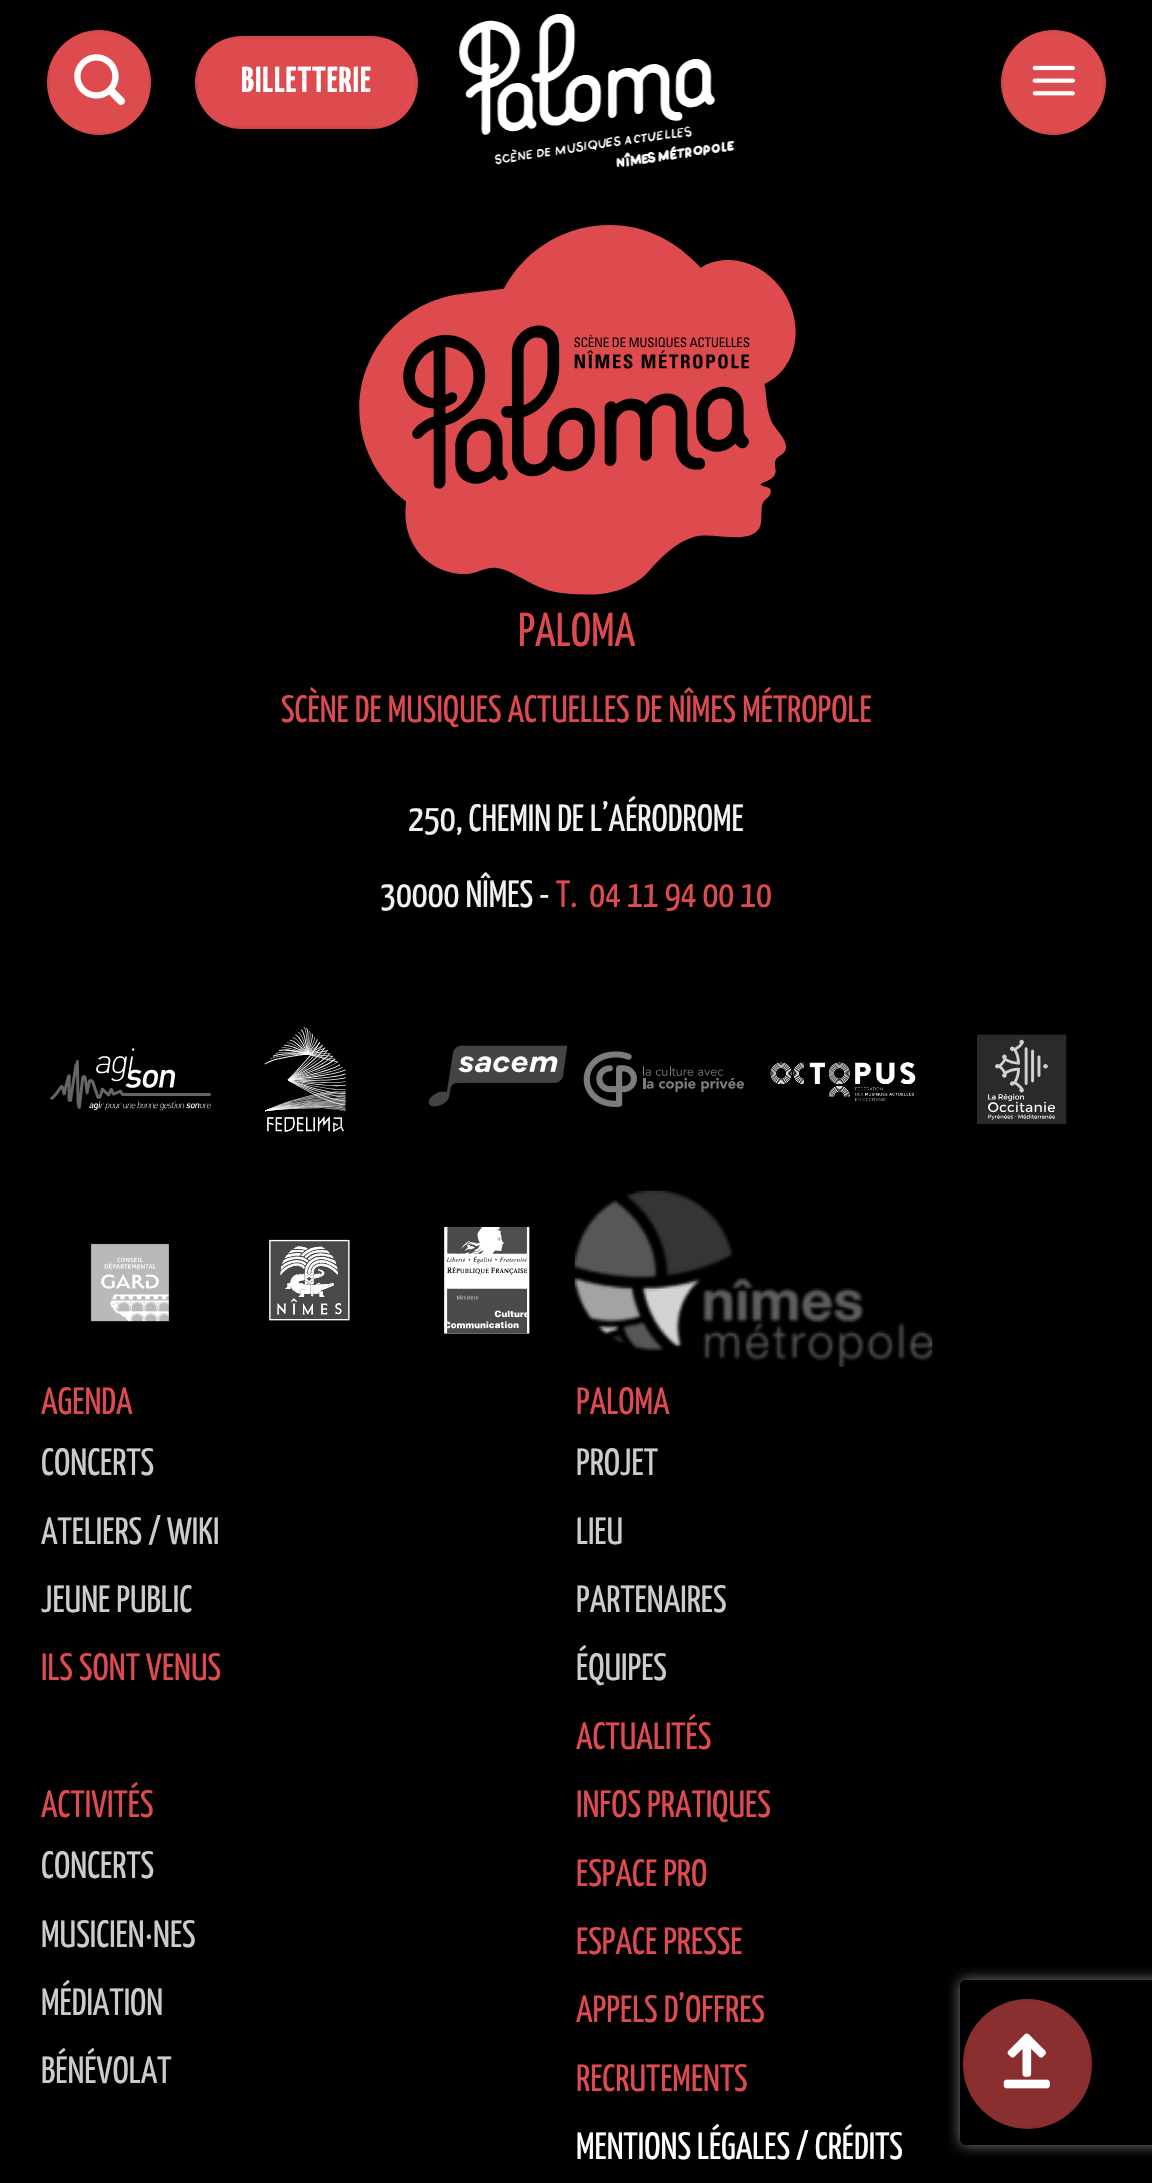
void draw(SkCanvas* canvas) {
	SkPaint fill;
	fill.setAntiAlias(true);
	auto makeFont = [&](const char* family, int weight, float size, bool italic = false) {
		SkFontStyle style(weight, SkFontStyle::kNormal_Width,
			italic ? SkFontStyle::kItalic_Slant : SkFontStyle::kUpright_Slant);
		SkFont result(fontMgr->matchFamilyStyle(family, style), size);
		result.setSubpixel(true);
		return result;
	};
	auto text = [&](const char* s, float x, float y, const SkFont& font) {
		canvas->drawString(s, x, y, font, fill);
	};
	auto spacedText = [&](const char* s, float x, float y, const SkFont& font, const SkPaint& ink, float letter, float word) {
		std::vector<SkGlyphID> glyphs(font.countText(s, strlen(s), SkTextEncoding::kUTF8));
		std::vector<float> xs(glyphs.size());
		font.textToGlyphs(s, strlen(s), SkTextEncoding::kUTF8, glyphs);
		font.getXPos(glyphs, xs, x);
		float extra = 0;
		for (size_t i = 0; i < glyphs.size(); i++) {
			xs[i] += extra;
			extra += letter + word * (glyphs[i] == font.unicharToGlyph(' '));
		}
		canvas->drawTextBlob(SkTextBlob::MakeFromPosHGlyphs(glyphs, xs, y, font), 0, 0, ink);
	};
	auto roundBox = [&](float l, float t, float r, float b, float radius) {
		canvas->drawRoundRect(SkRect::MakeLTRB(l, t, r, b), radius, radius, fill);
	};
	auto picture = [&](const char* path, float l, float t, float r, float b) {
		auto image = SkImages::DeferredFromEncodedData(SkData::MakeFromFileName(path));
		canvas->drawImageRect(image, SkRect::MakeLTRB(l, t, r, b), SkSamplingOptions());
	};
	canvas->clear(0xFF000000);
	fill.setColor(0xFFDD4B4E);
	roundBox(47, 30, 151, 135, 52);
	fill.setStyle(SkPaint::kStroke_Style);
	fill.setStrokeWidth(3);
	fill.setColor(0x0D000000);
	canvas->drawRect(SkRect::MakeLTRB(48.5f, 31.5f, 149.5f, 133.5f), fill);
	picture("image0.png", 74, 54, 125, 105);
	fill.setStyle(SkPaint::kFill_Style);
	fill.setColor(0xFFDD4B4E);
	roundBox(195, 36, 418, 129, 46.5f);
	fill.setStyle(SkPaint::kStroke_Style);
	fill.setColor(0x0D000000);
	canvas->drawRect(SkRect::MakeLTRB(196.5f, 37.5f, 416.5f, 127.5f), fill);
	picture("image1.png", 459, 14, 735, 167);
	fill.setStyle(SkPaint::kFill_Style);
	fill.setColor(0xFFDD4B4E);
	canvas->drawCircle(1053.5f, 82.5f, 52.5f, fill);
	fill.setStyle(SkPaint::kStroke_Style);
	fill.setColor(0x0D000000);
	canvas->drawRect(SkRect::MakeLTRB(1002.5f, 31.5f, 1104.5f, 133.5f), fill);
	picture("image2.png", 1032, 65, 1075, 96);
	picture("image3.png", 359, 225, 796, 595);
	picture("image4.png", 50, 1048, 211, 1111);
	picture("image5.png", 264, 1026, 346, 1132);
	picture("image6.png", 428, 1045, 568, 1107);
	picture("image7.png", 583, 1051, 744, 1107);
	picture("image8.png", 770, 1062, 916, 1102);
	picture("image9.png", 977, 1034, 1067, 1124);
	picture("image10.png", 90, 1243, 169, 1322);
	picture("image11.png", 269, 1239, 350, 1321);
	picture("image12.png", 444, 1227, 530, 1334);
	picture("image13.png", 574, 1190, 933, 1367);
	canvas->save();
	canvas->clipPath(SkPathBuilder(SkPathFillType::kEvenOdd).moveTo(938, 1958).lineTo(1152, 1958).lineTo(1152, 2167).lineTo(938, 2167).close().moveTo(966, 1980).lineTo(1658, 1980).cubicTo(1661.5f, 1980, 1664, 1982.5f, 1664, 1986).lineTo(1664, 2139).cubicTo(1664, 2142.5f, 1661.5f, 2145, 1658, 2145).lineTo(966, 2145).cubicTo(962.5f, 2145, 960, 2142.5f, 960, 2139).lineTo(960, 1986).cubicTo(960, 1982.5f, 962.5f, 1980, 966, 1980).close().detach(), true);
	fill.setStyle(SkPaint::kFill_Style);
	fill.setColor(0xFF808080);
	fill.setMaskFilter(SkMaskFilter::MakeBlur(kNormal_SkBlurStyle, 7));
	canvas->drawRoundRect(SkRect::MakeLTRB(960, 1980, 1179, 2145), 6, 6, fill);
	fill.setMaskFilter(nullptr);
	canvas->restore();
	fill.setColor(0xFF8A2F2F);
	roundBox(963, 1999, 1092, 2129, 64.5f);
	fill.setStyle(SkPaint::kStroke_Style);
	fill.setColor(0x0D000000);
	canvas->drawRect(SkRect::MakeLTRB(964.5f, 2000.5f, 1090.5f, 2127.5f), fill);
	picture("image14.png", 1003, 2033, 1050, 2089);
	auto font1 = makeFont("Yanone Kaffeesatz", 700, 36);
	fill.setStyle(SkPaint::kFill_Style);
	fill.setColor(0xFFFFFFFF);
	spacedText("BILLETTERIE", 241, 92, font1, fill, 1, 0);
	auto font2 = makeFont("Yanone Kaffeesatz", 400, 47.5f);
	fill.setColor(0xFFDD4B4E);
	text("PALOMA", 518, 646, font2);
	auto font3 = makeFont("Yanone Kaffeesatz", 400, 38);
	text("SCÈNE DE MUSIQUES ACTUELLES DE NÎMES MÉTROPOLE", 281, 722, font3);
	fill.setColor(0xFFF1F1F1);
	text("250, CHEMIN DE L’AÉRODROME", 408, 831, font3);
	text("30000 NÎMES -", 380, 907, font3);
	fill.setColor(0xFFDD4B4E);
	text("T.  04 11 94 00 10", 556, 907, font3);
	text("AGENDA", 41, 1414, font3);
	fill.setColor(0xFFCCCCCC);
	text("CONCERTS", 41, 1475, font3);
	text("ATELIERS / WIKI", 41, 1544, font3);
	text("JEUNE PUBLIC", 41, 1612, font3);
	fill.setColor(0xFFDD4B4E);
	text("ILS SONT VENUS", 41, 1680, font3);
	text("PALOMA", 576, 1414, font3);
	fill.setColor(0xFFCCCCCC);
	text("PROJET", 576, 1475, font3);
	text("LIEU", 576, 1544, font3);
	text("PARTENAIRES", 576, 1612, font3);
	text("ÉQUIPES", 576, 1680, font3);
	fill.setColor(0xFFDD4B4E);
	text("ACTUALITÉS", 576, 1749, font3);
	text("ACTIVITÉS", 41, 1817, font3);
	fill.setColor(0xFFCCCCCC);
	text("CONCERTS", 41, 1878, font3);
	text("MUSICIEN·NES", 41, 1947, font3);
	text("MÉDIATION", 41, 2015, font3);
	text("BÉNÉVOLAT", 41, 2083, font3);
	fill.setColor(0xFFDD4B4E);
	text("INFOS PRATIQUES", 576, 1817, font3);
	text("ESPACE PRO", 576, 1886, font3);
	text("ESPACE PRESSE", 576, 1954, font3);
	text("APPELS D’OFFRES", 576, 2022, font3);
	text("RECRUTEMENTS", 576, 2091, font3);
	fill.setColor(0xFFFFFFFF);
	text("MENTIONS LÉGALES / CRÉDITS", 576, 2159, font3);
}
